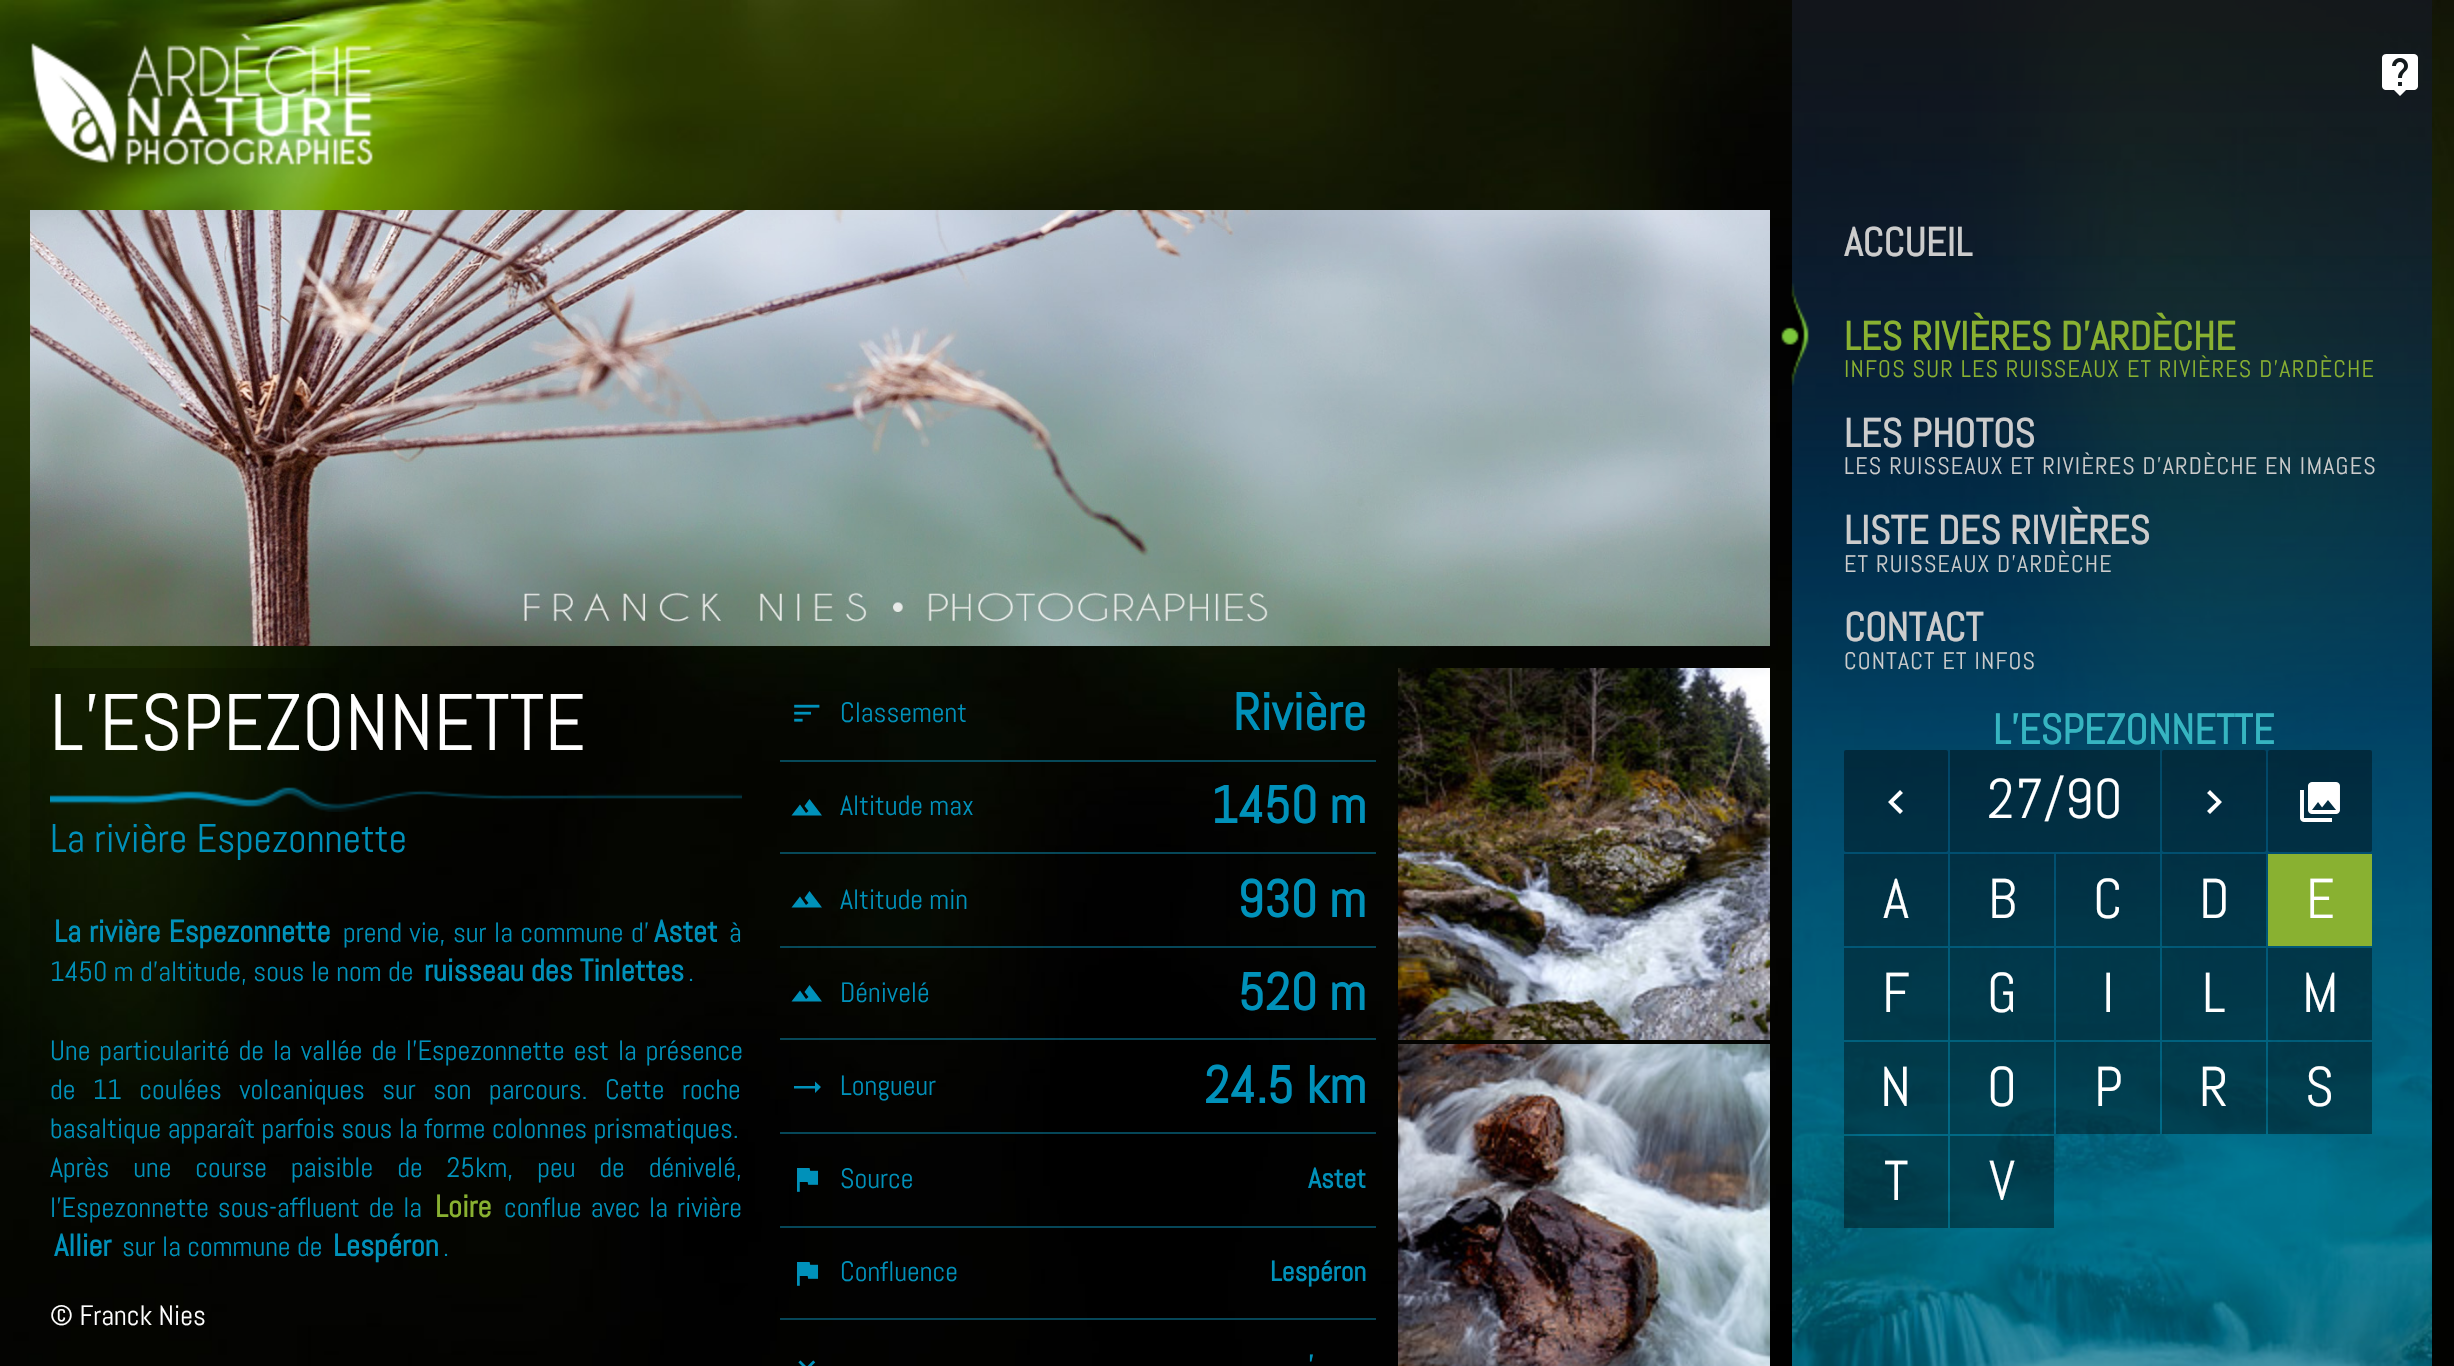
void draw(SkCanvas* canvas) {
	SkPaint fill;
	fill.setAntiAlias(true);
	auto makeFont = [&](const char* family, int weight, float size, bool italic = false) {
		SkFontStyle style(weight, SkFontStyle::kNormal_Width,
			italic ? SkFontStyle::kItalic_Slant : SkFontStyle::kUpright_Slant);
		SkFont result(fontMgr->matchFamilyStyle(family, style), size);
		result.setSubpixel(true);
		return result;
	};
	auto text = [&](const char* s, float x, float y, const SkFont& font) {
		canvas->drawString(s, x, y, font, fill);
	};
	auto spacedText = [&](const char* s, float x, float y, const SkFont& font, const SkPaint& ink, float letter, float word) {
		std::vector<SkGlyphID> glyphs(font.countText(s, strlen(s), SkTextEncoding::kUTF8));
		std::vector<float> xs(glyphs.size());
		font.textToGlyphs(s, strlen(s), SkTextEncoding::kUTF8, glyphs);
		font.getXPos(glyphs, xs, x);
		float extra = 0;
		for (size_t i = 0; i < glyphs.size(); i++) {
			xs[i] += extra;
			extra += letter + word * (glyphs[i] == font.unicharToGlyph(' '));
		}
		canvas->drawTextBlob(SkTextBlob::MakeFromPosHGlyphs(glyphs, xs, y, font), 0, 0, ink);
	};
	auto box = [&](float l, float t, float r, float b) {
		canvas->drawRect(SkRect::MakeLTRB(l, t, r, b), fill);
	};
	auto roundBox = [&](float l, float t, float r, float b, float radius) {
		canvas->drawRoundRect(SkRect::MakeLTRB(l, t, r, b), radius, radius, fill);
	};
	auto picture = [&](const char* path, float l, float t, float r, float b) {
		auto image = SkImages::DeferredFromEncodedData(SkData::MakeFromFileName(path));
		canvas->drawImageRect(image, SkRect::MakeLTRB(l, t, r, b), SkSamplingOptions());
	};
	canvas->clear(0xFFFFFFFF);
	picture("image0.png", 0, 0, 2454, 1366);
	picture("image2.png", 1792, 0, 2432, 1366);
	picture("image1.png", 1781, 283, 1809, 386);
	picture("image3.png", 2382, 54, 2418, 96);
	fill.setColor(0x66000000);
	roundBox(1844, 750, 1948, 852, 2);
	fill.setColor(0xFFFFFFFF);
	canvas->drawPath(SkPathBuilder().moveTo(1903, 811).lineTo(1900, 814).lineTo(1888, 802).lineTo(1900, 790).lineTo(1903, 793).lineTo(1893.5f, 802).close().detach(), fill);
	fill.setColor(0x66000000);
	box(1950, 750, 2160, 852);
	roundBox(2162, 750, 2266, 852, 2);
	fill.setColor(0xFFFFFFFF);
	canvas->drawPath(SkPathBuilder().moveTo(2207, 811).lineTo(2216.5f, 802).lineTo(2207, 793).lineTo(2210, 790).lineTo(2222, 802).lineTo(2210, 814).close().detach(), fill);
	fill.setColor(0x66000000);
	roundBox(2268, 750, 2372, 852, 2);
	picture("image4.png", 2300, 782, 2340, 822);
	box(1844, 854, 1948, 946);
	box(1950, 854, 2054, 946);
	box(2056, 854, 2160, 946);
	box(2162, 854, 2266, 946);
	fill.setColor(0xFF89B131);
	box(2268, 854, 2372, 946);
	fill.setColor(0x66000000);
	box(1844, 948, 1948, 1040);
	box(1950, 948, 2054, 1040);
	box(2056, 948, 2160, 1040);
	box(2162, 948, 2266, 1040);
	box(2268, 948, 2372, 1040);
	box(1844, 1042, 1948, 1134);
	box(1950, 1042, 2054, 1134);
	box(2056, 1042, 2160, 1134);
	box(2162, 1042, 2266, 1134);
	box(2268, 1042, 2372, 1134);
	box(1844, 1136, 1948, 1228);
	box(1950, 1136, 2054, 1228);
	picture("image5.png", 31, 33, 373, 167);
	picture("image6.png", 30, 210, 1770, 646);
	fill.setColor(0x33000000);
	box(30, 668, 339, 1106);
	picture("image7.png", 50, 787, 742, 812);
	fill.setColor(0x99097492);
	box(780, 760, 1376, 762);
	picture("image8.png", 794, 704, 820, 722);
	box(780, 852, 1376, 854);
	fill.setColor(0xFF0091BA);
	canvas->drawPath(SkPathBuilder().moveTo(809.5f, 799).lineTo(822, 815.5f).lineTo(791.5f, 815.5f).lineTo(800, 804.5f).lineTo(806, 813).lineTo(808.5f, 811).lineTo(804.5f, 806).close().detach(), fill);
	fill.setColor(0x99097492);
	box(780, 946, 1376, 948);
	fill.setColor(0xFF0091BA);
	canvas->drawPath(SkPathBuilder().moveTo(809.5f, 891).lineTo(822, 907.5f).lineTo(791.5f, 907.5f).lineTo(800, 896.5f).lineTo(806, 905).lineTo(808.5f, 903).lineTo(804.5f, 898).close().detach(), fill);
	fill.setColor(0x99097492);
	box(780, 1038, 1376, 1040);
	fill.setColor(0xFF0091BA);
	canvas->drawPath(SkPathBuilder().moveTo(809.5f, 985).lineTo(822, 1001.5f).lineTo(791.5f, 1001.5f).lineTo(800, 990.5f).lineTo(806, 999).lineTo(808.5f, 997).lineTo(804.5f, 992).close().detach(), fill);
	fill.setColor(0x99097492);
	box(780, 1132, 1376, 1134);
	fill.setColor(0xFF0091BA);
	canvas->drawPath(SkPathBuilder().moveTo(821, 1087).lineTo(815, 1093).lineTo(815, 1088.5f).lineTo(794, 1088.5f).lineTo(794, 1086).lineTo(815, 1086).lineTo(815, 1081.5f).close().detach(), fill);
	fill.setColor(0xFF064658);
	box(780, 1226, 1376, 1228);
	picture("image9.png", 797, 1168, 819, 1192);
	box(780, 1318, 1376, 1320);
	picture("image10.png", 797, 1262, 819, 1286);
	picture("image11.png", 798, 1360, 816, 1366);
	picture("image12.png", 1398, 668, 1770, 1040);
	picture("image13.png", 1398, 1044, 1770, 1366);
	auto font1 = makeFont("Abel", 700, 40);
	fill.setColor(0xFFCCCCCC);
	text("ACCUEIL", 1844, 256, font1);
	fill.setColor(0xFF89B131);
	text("LES RIVIÈRES D'ARDÈCHE", 1844, 350, font1);
	auto font2 = makeFont("Abel", 400, 24);
	spacedText("INFOS SUR LES RUISSEAUX ET RIVIÈRES D'ARDÈCHE", 1844, 377, font2, fill, 1.2f, 0);
	fill.setColor(0xFFCCCCCC);
	text("LES PHOTOS", 1844, 447, font1);
	spacedText("LES RUISSEAUX ET RIVIÈRES D'ARDÈCHE EN IMAGES", 1844, 474, font2, fill, 1.2f, 0);
	text("LISTE DES RIVIÈRES", 1844, 544, font1);
	spacedText("ET RUISSEAUX D'ARDÈCHE", 1844, 572, font2, fill, 1.2f, 0);
	text("CONTACT", 1844, 641, font1);
	spacedText("CONTACT ET INFOS", 1844, 669, font2, fill, 1.2f, 0);
	auto font3 = makeFont("Abel", 700, 42);
	fill.setColor(0xFF36B5C1);
	text("L'ESPEZONNETTE", 1993, 744, font3);
	auto font4 = makeFont("Abel", 400, 56);
	fill.setColor(0xFFFFFFFF);
	text("27/90", 1987, 818, font4);
	text("A", 1883, 918, font4);
	text("B", 1988, 918, font4);
	text("C", 2093, 918, font4);
	text("D", 2199, 918, font4);
	text("E", 2306, 918, font4);
	text("F", 1882, 1012, font4);
	text("G", 1987, 1012, font4);
	text("I", 2102, 1012, font4);
	text("L", 2202, 1012, font4);
	text("M", 2302, 1012, font4);
	text("N", 1880, 1106, font4);
	text("O", 1987, 1106, font4);
	text("P", 2094, 1106, font4);
	text("R", 2199, 1106, font4);
	text("S", 2305, 1106, font4);
	text("T", 1884, 1200, font4);
	text("V", 1989, 1200, font4);
	auto font5 = makeFont("Abel", 400, 80);
	text("L'ESPEZONNETTE", 50, 750, font5);
	auto font6 = makeFont("Abel", 400, 40);
	fill.setColor(0xFF0091BA);
	text("La rivière Espezonnette", 50, 852, font6);
	auto font7 = makeFont("Abel", 700, 30.75f);
	spacedText("La rivière Espezonnette", 54, 942, font7, fill, 0, 1);
	auto font8 = makeFont("Abel", 400, 28);
	spacedText("prend vie, sur la commune d'", 343, 942, font8, fill, 0, 1);
	text("Astet", 654, 942, font7);
	text("à", 729, 942, font8);
	text("1450 m d'altitude, sous le nom de", 50, 981, font8);
	text("ruisseau des Tinlettes", 424, 981, font7);
	text(".", 688, 981, font8);
	spacedText("Une particularité de la vallée de l'Espezonnette est la présence", 50, 1060, font8, fill, 0, 2.5f);
	spacedText("de 11 coulées volcaniques sur son parcours. Cette roche", 50, 1099, font8, fill, 0, 11);
	text("basaltique apparaît parfois sous la forme colonnes prismatiques.", 50, 1138, font8);
	spacedText("Après une course paisible de 25km, peu de dénivelé,", 50, 1177, font8, fill, 0, 17.5f);
	spacedText("l'Espezonnette sous-affluent de la", 50, 1217, font8, fill, 0, 2.5f);
	fill.setColor(0xFF89B131);
	text("Loire", 435, 1217, font7);
	fill.setColor(0xFF0091BA);
	spacedText("conflue avec la rivière", 504, 1217, font8, fill, 0, 2.5f);
	text("Allier", 54, 1256, font7);
	text("sur la commune de", 122, 1256, font8);
	text("Lespéron", 333, 1256, font7);
	text(".", 443, 1256, font8);
	fill.setColor(0xFFFFFFFF);
	text("© Franck Nies", 50, 1325, font8);
	fill.setColor(0xFF0091BA);
	text("Classement", 840, 722, font8);
	auto font9 = makeFont("Abel", 700, 52);
	text("Rivière", 1233, 730, font9);
	text("Altitude max", 840, 815, font8);
	text("1450 m", 1211, 823, font9);
	text("Altitude min", 840, 909, font8);
	text("930 m", 1237, 917, font9);
	text("Dénivelé", 840, 1002, font8);
	text("520 m", 1238, 1010, font9);
	text("Longueur", 840, 1095, font8);
	text("24.5 km", 1204, 1103, font9);
	text("Source", 840, 1188, font8);
	auto font10 = makeFont("Abel", 700, 28);
	text("Astet", 1308, 1188, font10);
	text("Confluence", 840, 1281, font8);
	text("Lespéron", 1270, 1281, font10);
	text("'", 1308, 1375, font10);
}
